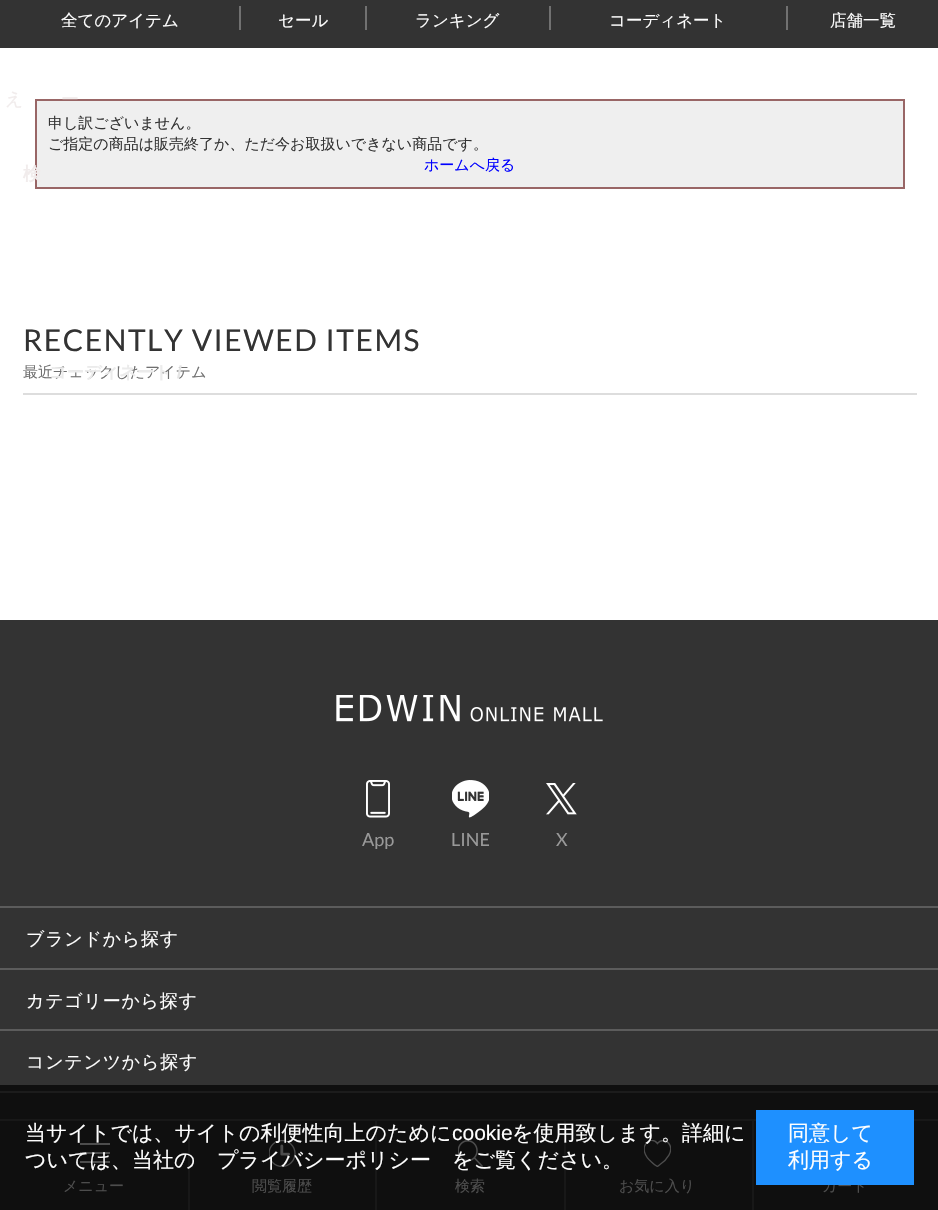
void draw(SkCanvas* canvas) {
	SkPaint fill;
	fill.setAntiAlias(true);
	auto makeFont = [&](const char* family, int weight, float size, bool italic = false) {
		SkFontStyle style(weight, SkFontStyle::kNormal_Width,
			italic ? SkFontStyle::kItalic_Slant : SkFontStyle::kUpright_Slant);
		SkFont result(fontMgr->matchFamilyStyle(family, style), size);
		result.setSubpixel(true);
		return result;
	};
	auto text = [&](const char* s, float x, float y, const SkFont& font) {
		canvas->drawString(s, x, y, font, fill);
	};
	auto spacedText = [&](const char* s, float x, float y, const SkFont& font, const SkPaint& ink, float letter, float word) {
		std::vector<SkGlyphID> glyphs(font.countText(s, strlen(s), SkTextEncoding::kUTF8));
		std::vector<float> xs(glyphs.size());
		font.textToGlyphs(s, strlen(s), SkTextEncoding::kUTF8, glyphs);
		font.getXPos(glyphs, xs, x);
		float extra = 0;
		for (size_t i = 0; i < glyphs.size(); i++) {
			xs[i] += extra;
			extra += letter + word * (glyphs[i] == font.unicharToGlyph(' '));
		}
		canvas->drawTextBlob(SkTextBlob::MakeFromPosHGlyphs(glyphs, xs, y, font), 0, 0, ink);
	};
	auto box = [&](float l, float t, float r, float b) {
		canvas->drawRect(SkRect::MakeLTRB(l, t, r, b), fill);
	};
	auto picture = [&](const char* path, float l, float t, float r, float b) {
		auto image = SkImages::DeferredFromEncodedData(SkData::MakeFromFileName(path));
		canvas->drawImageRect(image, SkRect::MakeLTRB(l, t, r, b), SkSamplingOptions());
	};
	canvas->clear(0xFFFFFFFF);
	fill.setColor(0xFF333333);
	box(0, 0, 938, 48);
	fill.setColor(0xFF717171);
	box(239, 6, 241, 30);
	box(365, 6, 367, 30);
	box(549, 6, 551, 30);
	box(786, 6, 788, 30);
	fill.setColor(0xFFEFEFEF);
	canvas->drawRect(SkRect::MakeLTRB(36, 100, 904, 188), fill);
	fill.setStyle(SkPaint::kStroke_Style);
	fill.setStrokeWidth(2);
	fill.setColor(0xFF996666);
	canvas->drawRect(SkRect::MakeLTRB(36, 100, 904, 188), fill);
	fill.setStyle(SkPaint::kFill_Style);
	fill.setColor(0xFFDDDDDD);
	box(23, 393, 917, 395);
	fill.setColor(0xFF333333);
	box(0, 620, 938, 1085);
	fill.setColor(0xFF0F0F0F);
	box(0, 1085, 938, 1091);
	picture("image0.png", 336, 695, 603, 722);
	picture("image1.png", 366, 780, 390, 818);
	picture("image2.png", 452, 780, 489, 818);
	picture("image3.png", 546, 783, 577, 815);
	fill.setColor(0xFF5C5C5C);
	box(0, 906, 938, 908);
	box(0, 968, 938, 970);
	box(0, 1029, 938, 1031);
	fill.setColor(0xFF1C1C1C);
	box(0, 1091, 938, 1093);
	fill.setColor(0xFF0F0F0F);
	box(0, 1093, 938, 1119);
	box(0, 1121, 938, 1210);
	fill.setColor(0xFF181818);
	box(0, 1119, 938, 1121);
	fill.setColor(0xFF4D4D4D);
	box(80, 1152, 110, 1154);
	box(80, 1143, 110, 1145);
	box(80, 1161, 110, 1163);
	fill.setColor(0xFF181818);
	box(188, 1121, 190, 1210);
	picture("image4.png", 269, 1140, 296, 1167);
	box(375, 1121, 377, 1210);
	picture("image5.png", 458, 1140, 483, 1167);
	box(564, 1121, 566, 1210);
	canvas->save();
	canvas->clipRect(SkRect::MakeLTRB(644, 1140, 671, 1167));
	fill.setStyle(SkPaint::kStroke_Style);
	fill.setStrokeWidth(1.3f);
	fill.setColor(0xFF4D4D4D);
	canvas->drawPath(SkPathBuilder().moveTo(663, 1140.5f).cubicTo(661, 1140.5f, 658.5f, 1142, 657.5f, 1143.5f).cubicTo(650.5f, 1134, 635, 1148, 651.5f, 1162).cubicTo(652.5f, 1163, 656, 1166, 657.5f, 1166.5f).lineTo(660, 1164.5f).cubicTo(666, 1160.5f, 675, 1150.5f, 668.5f, 1143).cubicTo(667, 1141.5f, 665, 1140.5f, 663, 1140.5f).close().detach(), fill);
	canvas->restore();
	fill.setStyle(SkPaint::kFill_Style);
	fill.setColor(0xFF181818);
	box(752, 1121, 754, 1210);
	auto font1 = makeFont("WenQuanYi Zen Hei", 500, 16.5f);
	fill.setColor(0xFFFEFEFE);
	text("全てのアイテム", 61, 26, font1);
	text("セール", 278, 26, font1);
	text("ランキング", 415, 26, font1);
	text("コーディネート", 609, 26, font1);
	text("店舗一覧", 830, 26, font1);
	auto font2 = makeFont("WenQuanYi Zen Hei", 500, 18);
	fill.setColor(0xFFF1ECEC);
	text("え", 5, 105, font2);
	text("ー", 61, 105, font2);
	auto font3 = makeFont("WenQuanYi Zen Hei", 700, 18);
	text("検", 23, 180, font3);
	auto font4 = makeFont("WenQuanYi Zen Hei", 500, 15);
	fill.setColor(0xFF333333);
	text("申し訳ございません。", 48, 128, font4);
	text("ご指定の商品は販売終了か、ただ今お取扱いできない商品です。", 48, 149, font4);
	fill.setColor(0xFF0000FF);
	text("ホームへ戻る", 424, 170, font4);
	auto font5 = makeFont("Lato", 400, 30);
	fill.setColor(0xFF333333);
	spacedText("RECENTLY VIEWED ITEMS", 23, 351, font5, fill, 1.5f, 0);
	fill.setColor(0xFF707070);
	text("最近チェックしたアイテム", 23, 377, font4);
	auto font6 = makeFont("Liberation Sans", 700, 17.25f);
	fill.setColor(0xFFE5E5E5);
	text("/", 177, 378, font6);
	auto font7 = makeFont("WenQuanYi Zen Hei", 700, 17.25f);
	fill.setColor(0xFFEBEBEB);
	text("コーディネート", 49, 378, font7);
	auto font8 = makeFont("Lato", 400, 18);
	fill.setColor(0xFF999999);
	text("App", 362, 846, font8);
	text("LINE", 451, 846, font8);
	text("X", 556, 846, font8);
	fill.setColor(0xFFFEFEFE);
	spacedText("ブランドから探す", 26, 945, font2, fill, 0.75f, 0);
	spacedText("カテゴリーから探す", 26, 1007, font2, fill, 0.75f, 0);
	spacedText("コンテンツから探す", 26, 1068, font2, fill, 0.75f, 0);
	fill.setColor(0xFF4D4D4D);
	text("メニュー", 63, 1191, font4);
	text("閲覧履歴", 252, 1191, font4);
	text("検索", 455, 1191, font4);
	text("お気に入り", 619, 1191, font4);
	text("カート", 822, 1191, font4);
	auto font9 = makeFont("WenQuanYi Zen Hei", 500, 21);
	fill.setColor(0xFFFEFEFE);
	text("当サイトでは、サイトの利便性向上のために", 25, 1140, font9);
	auto font10 = makeFont("Liberation Sans", 400, 21);
	text("cookie", 452, 1140, font10);
	text("を使用致します。詳細に", 512, 1140, font9);
	text("ついては、当社の", 25, 1167, font9);
	text("プライバシーポリシー", 217, 1167, font9);
	text("をご覧ください。", 452, 1167, font9);
	fill.setColor(0xFF1E90FF);
	box(756, 1110, 914, 1185);
	fill.setColor(0xFFFEFEFE);
	text("同意して", 788, 1140, font9);
	text("利用する", 788, 1167, font9);
}
